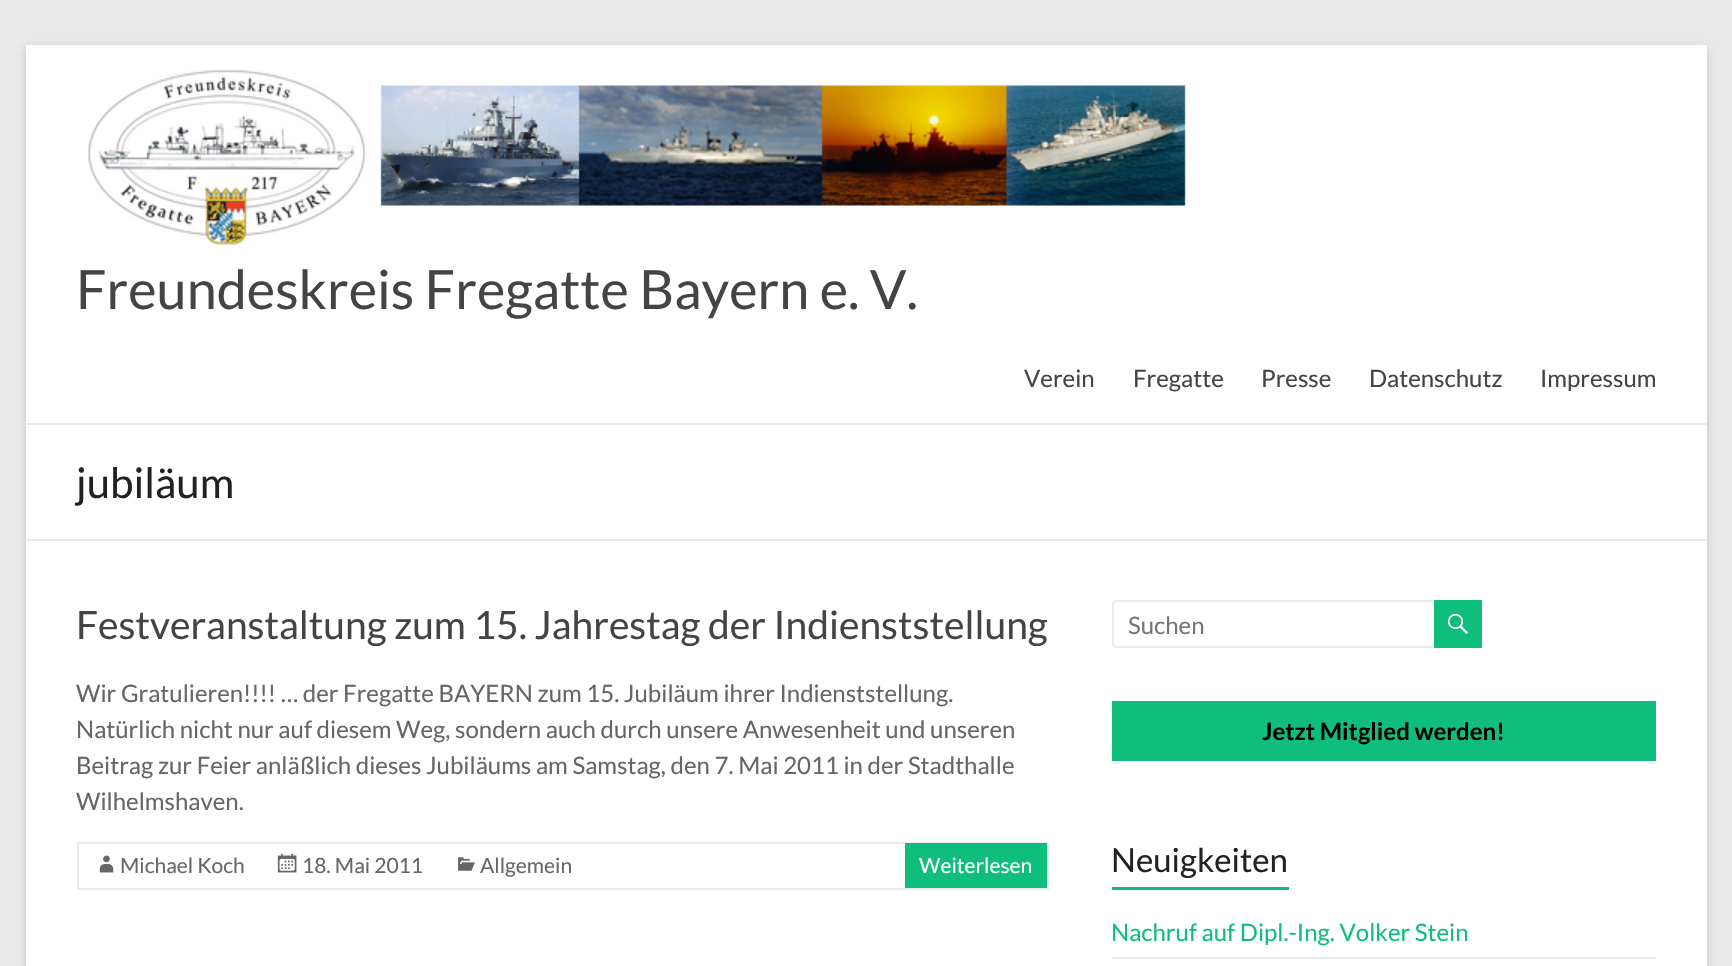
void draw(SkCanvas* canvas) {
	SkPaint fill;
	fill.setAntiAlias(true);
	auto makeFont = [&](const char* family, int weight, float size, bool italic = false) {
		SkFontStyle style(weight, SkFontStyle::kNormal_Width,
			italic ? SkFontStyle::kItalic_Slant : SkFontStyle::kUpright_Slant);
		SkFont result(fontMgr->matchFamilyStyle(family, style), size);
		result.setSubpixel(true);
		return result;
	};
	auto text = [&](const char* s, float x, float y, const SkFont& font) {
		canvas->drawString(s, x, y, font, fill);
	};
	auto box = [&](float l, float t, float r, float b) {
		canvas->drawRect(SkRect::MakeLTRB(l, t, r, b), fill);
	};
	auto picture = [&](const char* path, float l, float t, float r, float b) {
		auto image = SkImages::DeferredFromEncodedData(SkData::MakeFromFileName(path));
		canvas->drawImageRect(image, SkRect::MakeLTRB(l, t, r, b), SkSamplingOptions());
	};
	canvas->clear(0xFFEAEAEA);
	fill.setColor(0x4D646464);
	fill.setMaskFilter(SkMaskFilter::MakeBlur(kNormal_SkBlurStyle, 4.5f));
	canvas->drawRect(SkRect::MakeLTRB(26, 48, 1707, 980), fill);
	fill.setMaskFilter(nullptr);
	fill.setColor(0xFFFFFFFF);
	box(26, 45, 1707, 966);
	fill.setColor(0xFFEAEAEA);
	box(26, 423, 1707, 425);
	picture("image0.png", 88, 69, 1186, 245);
	box(26, 539, 1707, 541);
	fill.setStyle(SkPaint::kStroke_Style);
	fill.setStrokeWidth(2);
	canvas->drawRect(SkRect::MakeLTRB(78, 843, 1048, 889), fill);
	picture("image1.png", 99, 855, 114, 873);
	picture("image2.png", 277, 853, 297, 873);
	picture("image3.png", 458, 857, 475, 871);
	fill.setStyle(SkPaint::kFill_Style);
	fill.setColor(0xFF0FBE7C);
	box(905, 843, 1047, 888);
	fill.setStyle(SkPaint::kStroke_Style);
	fill.setColor(0xFFEAEAEA);
	canvas->drawRoundRect(SkRect::MakeLTRB(1113, 601, 1438, 647), 4, 4, fill);
	fill.setStyle(SkPaint::kFill_Style);
	fill.setColor(0xFF0FBE7C);
	box(1434, 600, 1482, 648);
	picture("image4.png", 1447, 613, 1468, 634);
	box(1112, 701, 1656, 761);
	box(1112, 887, 1289, 890);
	fill.setColor(0xFFEAEAEA);
	box(1112, 957, 1656, 959);
	auto font1 = makeFont("Lato", 400, 54);
	fill.setColor(0xFF444444);
	text("Freundeskreis Fregatte Bayern e. V.", 76, 309, font1);
	auto font2 = makeFont("Lato", 400, 24);
	text("Verein", 1024, 387, font2);
	text("Fregatte", 1133, 387, font2);
	text("Presse", 1261, 387, font2);
	text("Datenschutz", 1369, 387, font2);
	text("Impressum", 1540, 387, font2);
	auto font3 = makeFont("Lato", 400, 42);
	fill.setColor(0xFF222222);
	text("jubiläum", 76, 498, font3);
	auto font4 = makeFont("Lato", 400, 39);
	fill.setColor(0xFF444444);
	text("Festveranstaltung zum 15. Jahrestag der Indienststellung", 76, 639, font4);
	fill.setColor(0xFF666666);
	text("Wir Gratulieren!!!! … der Fregatte BAYERN zum 15. Jubiläum ihrer Indienststellung.", 76, 702, font2);
	text("Natürlich nicht nur auf diesem Weg, sondern auch durch unsere Anwesenheit und unseren", 76, 738, font2);
	text("Beitrag zur Feier anläßlich dieses Jubiläums am Samstag, den 7. Mai 2011 in der Stadthalle", 76, 774, font2);
	text("Wilhelmshaven.", 76, 810, font2);
	auto font5 = makeFont("Lato", 400, 21);
	text("Michael Koch", 120, 873, font5);
	text("18. Mai 2011", 302, 873, font5);
	text("Allgemein", 480, 873, font5);
	fill.setColor(0xFFFFFFFF);
	text("Weiterlesen", 919, 873, font5);
	fill.setColor(0xFF757575);
	text("Suchen", 1128, 634, font2);
	auto font6 = makeFont("Lato", 700, 24);
	fill.setColor(0xFF000000);
	text("Jetzt Mitglied werden!", 1262, 740, font6);
	auto font7 = makeFont("Lato", 400, 33);
	fill.setColor(0xFF222222);
	text("Neuigkeiten", 1111, 872, font7);
	fill.setColor(0xFF0FBE7C);
	text("Nachruf auf Dipl.-Ing. Volker Stein", 1111, 941, font2);
}
